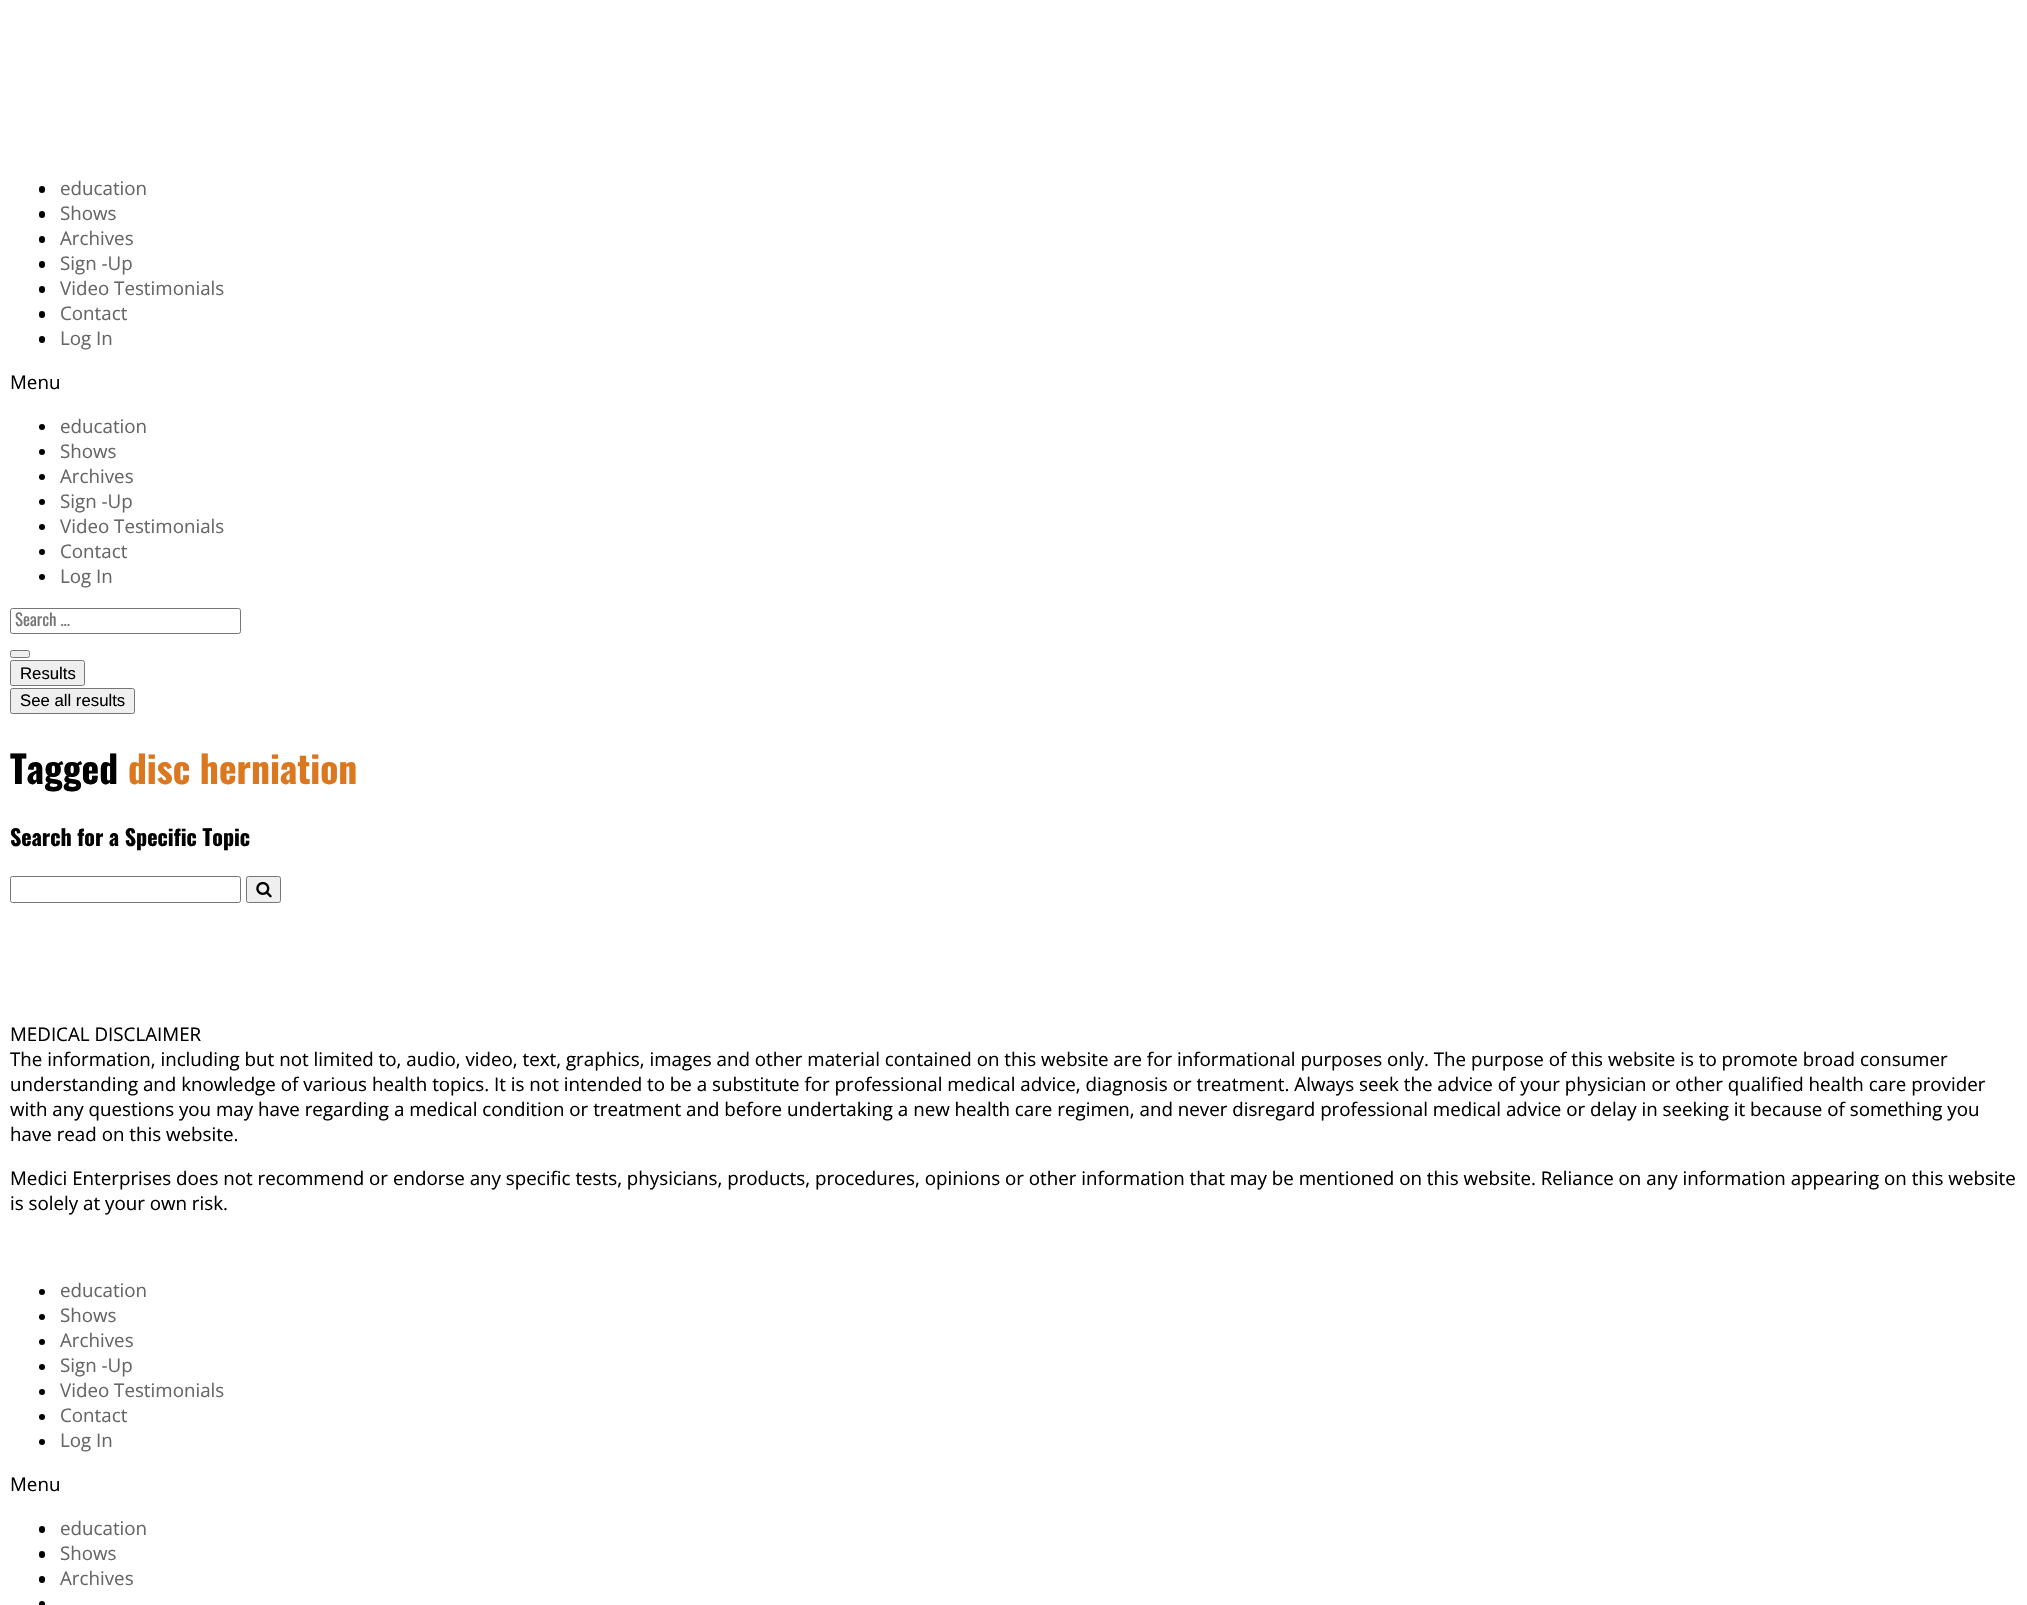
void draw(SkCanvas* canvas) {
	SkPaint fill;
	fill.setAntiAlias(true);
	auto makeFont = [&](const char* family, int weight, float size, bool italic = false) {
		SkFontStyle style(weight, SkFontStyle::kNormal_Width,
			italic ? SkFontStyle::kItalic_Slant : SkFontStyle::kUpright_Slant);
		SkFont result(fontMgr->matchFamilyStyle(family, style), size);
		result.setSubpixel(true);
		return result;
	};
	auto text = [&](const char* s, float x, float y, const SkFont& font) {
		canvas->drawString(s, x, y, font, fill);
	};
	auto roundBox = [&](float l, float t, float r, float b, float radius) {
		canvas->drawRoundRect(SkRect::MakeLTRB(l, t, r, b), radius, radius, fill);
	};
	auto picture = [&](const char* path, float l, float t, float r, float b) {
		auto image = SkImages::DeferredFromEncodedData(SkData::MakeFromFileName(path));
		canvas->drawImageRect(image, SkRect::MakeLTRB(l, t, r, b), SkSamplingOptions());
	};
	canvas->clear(0xFFFFFFFF);
	fill.setColor(0xFF000000);
	roundBox(39, 186, 45, 193, 3);
	roundBox(39, 211, 45, 218, 3);
	roundBox(39, 236, 45, 243, 3);
	roundBox(39, 261, 45, 268, 3);
	roundBox(39, 286, 45, 293, 3);
	roundBox(39, 311, 45, 318, 3);
	roundBox(39, 336, 45, 343, 3);
	canvas->drawCircle(42, 427, 3, fill);
	canvas->drawCircle(42, 452, 3, fill);
	canvas->drawCircle(42, 477, 3, fill);
	canvas->drawCircle(42, 502, 3, fill);
	canvas->drawCircle(42, 527, 3, fill);
	canvas->drawCircle(42, 552, 3, fill);
	canvas->drawCircle(42, 577, 3, fill);
	fill.setStyle(SkPaint::kStroke_Style);
	fill.setStrokeWidth(1);
	fill.setColor(0xFF767676);
	canvas->drawRoundRect(SkRect::MakeLTRB(10.5f, 608.5f, 240.5f, 633.5f), 2, 2, fill);
	fill.setStyle(SkPaint::kFill_Style);
	fill.setColor(0xFFEFEFEF);
	canvas->drawRoundRect(SkRect::MakeLTRB(10.5f, 650.5f, 29.5f, 657.5f), 2, 2, fill);
	fill.setStyle(SkPaint::kStroke_Style);
	fill.setColor(0xFF767676);
	canvas->drawRoundRect(SkRect::MakeLTRB(10.5f, 650.5f, 29.5f, 657.5f), 2, 2, fill);
	fill.setStyle(SkPaint::kFill_Style);
	fill.setColor(0xFFEFEFEF);
	canvas->drawRoundRect(SkRect::MakeLTRB(10.5f, 660.5f, 84.5f, 685.5f), 2, 2, fill);
	fill.setStyle(SkPaint::kStroke_Style);
	fill.setColor(0xFF767676);
	canvas->drawRoundRect(SkRect::MakeLTRB(10.5f, 660.5f, 84.5f, 685.5f), 2, 2, fill);
	fill.setStyle(SkPaint::kFill_Style);
	fill.setColor(0xFFEFEFEF);
	canvas->drawRoundRect(SkRect::MakeLTRB(10.5f, 688.5f, 134.5f, 713.5f), 2, 2, fill);
	fill.setStyle(SkPaint::kStroke_Style);
	fill.setColor(0xFF767676);
	canvas->drawRoundRect(SkRect::MakeLTRB(10.5f, 688.5f, 134.5f, 713.5f), 2, 2, fill);
	canvas->drawRoundRect(SkRect::MakeLTRB(10.5f, 876.5f, 240.5f, 902.5f), 2, 2, fill);
	fill.setStyle(SkPaint::kFill_Style);
	fill.setColor(0xFFEFEFEF);
	canvas->drawRoundRect(SkRect::MakeLTRB(246.5f, 876.5f, 280.5f, 902.5f), 2, 2, fill);
	fill.setStyle(SkPaint::kStroke_Style);
	fill.setColor(0xFF767676);
	canvas->drawRoundRect(SkRect::MakeLTRB(246.5f, 876.5f, 280.5f, 902.5f), 2, 2, fill);
	picture("image0.png", 256, 881, 272, 898);
	fill.setStyle(SkPaint::kFill_Style);
	fill.setColor(0xFF000000);
	canvas->drawCircle(42, 1292, 3, fill);
	canvas->drawCircle(42, 1317, 3, fill);
	canvas->drawCircle(42, 1342, 3, fill);
	canvas->drawCircle(42, 1367, 3, fill);
	canvas->drawCircle(42, 1392, 3, fill);
	canvas->drawCircle(42, 1417, 3, fill);
	canvas->drawCircle(42, 1442, 3, fill);
	roundBox(39, 1526, 45, 1533, 3);
	roundBox(39, 1551, 45, 1558, 3);
	roundBox(39, 1576, 45, 1583, 3);
	roundBox(39, 1601, 45, 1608, 3);
	auto font1 = makeFont("Open Sans", 400, 18.75f);
	fill.setColor(0xFF666666);
	text("education", 60, 195, font1);
	text("Shows", 60, 220, font1);
	text("Archives", 60, 245, font1);
	text("Sign -Up", 60, 270, font1);
	text("Video Testimonials", 60, 295, font1);
	text("Contact", 60, 320, font1);
	text("Log In", 60, 345, font1);
	fill.setColor(0xFF000000);
	text("Menu", 10, 389, font1);
	fill.setColor(0xFF666666);
	text("education", 60, 433, font1);
	text("Shows", 60, 458, font1);
	text("Archives", 60, 483, font1);
	text("Sign -Up", 60, 508, font1);
	text("Video Testimonials", 60, 533, font1);
	text("Contact", 60, 558, font1);
	text("Log In", 60, 583, font1);
	auto font2 = makeFont("Oswald", 400, 16.75f);
	fill.setColor(0xFF757575);
	text("Search ...", 15, 626, font2);
	auto font3 = makeFont("Liberation Sans", 400, 16.75f);
	fill.setColor(0xFF000000);
	text("Results", 20, 679, font3);
	text("See all results", 20, 706, font3);
	auto font4 = makeFont("Oswald", 700, 37.5f);
	text("Tagged", 10, 784, font4);
	fill.setColor(0xFFDB771F);
	text("disc herniation", 128, 784, font4);
	auto font5 = makeFont("Oswald", 700, 22);
	fill.setColor(0xFF000000);
	text("Search for a Specific Topic", 10, 846, font5);
	text("MEDICAL DISCLAIMER", 10, 1041, font1);
	text("The information, including but not limited to, audio, video, text, graphics, images and other material contained on this website are for informational purposes only. The purpose of this website is to promote broad consumer", 10, 1066, font1);
	text("understanding and knowledge of various health topics. It is not intended to be a substitute for professional medical advice, diagnosis or treatment. Always seek the advice of your physician or other qualified health care provider", 10, 1091, font1);
	text("with any questions you may have regarding a medical condition or treatment and before undertaking a new health care regimen, and never disregard professional medical advice or delay in seeking it because of something you", 10, 1116, font1);
	text("have read on this website.", 10, 1141, font1);
	text("Medici Enterprises does not recommend or endorse any specific tests, physicians, products, procedures, opinions or other information that may be mentioned on this website. Reliance on any information appearing on this website", 10, 1185, font1);
	text("is solely at your own risk.", 10, 1210, font1);
	fill.setColor(0xFF666666);
	text("education", 60, 1297, font1);
	text("Shows", 60, 1322, font1);
	text("Archives", 60, 1347, font1);
	text("Sign -Up", 60, 1372, font1);
	text("Video Testimonials", 60, 1397, font1);
	text("Contact", 60, 1422, font1);
	text("Log In", 60, 1447, font1);
	fill.setColor(0xFF000000);
	text("Menu", 10, 1491, font1);
	fill.setColor(0xFF666666);
	text("education", 60, 1535, font1);
	text("Shows", 60, 1560, font1);
	text("Archives", 60, 1585, font1);
}
